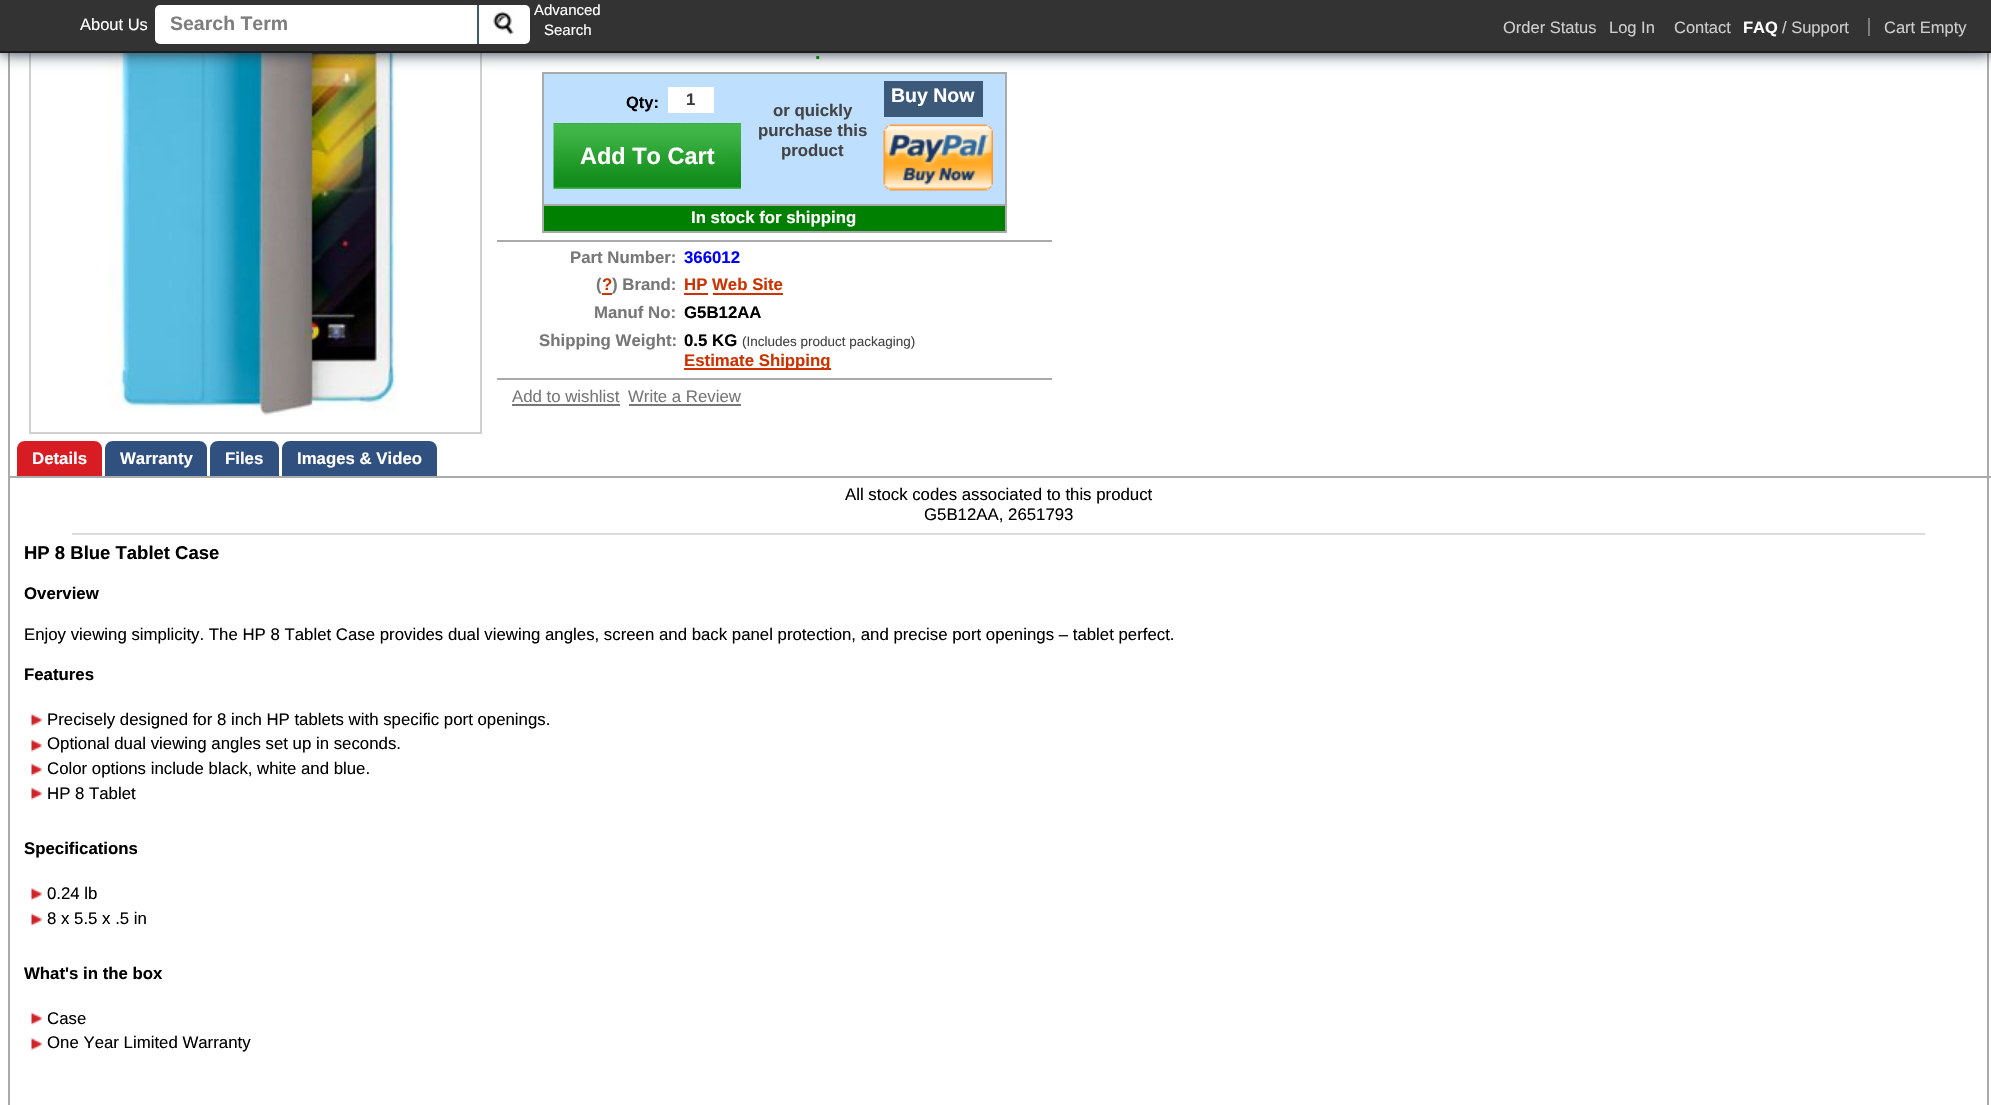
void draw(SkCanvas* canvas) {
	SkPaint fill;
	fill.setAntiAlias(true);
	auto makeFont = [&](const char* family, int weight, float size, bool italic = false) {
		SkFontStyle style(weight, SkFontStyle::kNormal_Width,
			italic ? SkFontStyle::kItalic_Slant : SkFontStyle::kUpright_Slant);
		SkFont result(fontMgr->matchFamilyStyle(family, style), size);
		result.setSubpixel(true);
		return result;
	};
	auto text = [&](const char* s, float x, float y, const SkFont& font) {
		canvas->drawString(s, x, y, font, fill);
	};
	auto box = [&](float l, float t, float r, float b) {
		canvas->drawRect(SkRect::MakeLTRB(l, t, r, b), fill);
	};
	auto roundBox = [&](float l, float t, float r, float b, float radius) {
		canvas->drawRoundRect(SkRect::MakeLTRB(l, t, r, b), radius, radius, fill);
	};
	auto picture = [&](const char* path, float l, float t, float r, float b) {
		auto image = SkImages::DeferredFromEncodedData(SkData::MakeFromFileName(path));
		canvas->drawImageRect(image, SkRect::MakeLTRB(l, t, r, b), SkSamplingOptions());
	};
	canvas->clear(0xFFFFFFFF);
	fill.setStyle(SkPaint::kStroke_Style);
	fill.setStrokeWidth(2);
	fill.setColor(0xFFAAAAAA);
	canvas->drawRect(SkRect::MakeLTRB(9, -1, 1988, 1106), fill);
	fill.setColor(0xFFD0D0D0);
	canvas->drawRect(SkRect::MakeLTRB(30, -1, 481, 433), fill);
	picture("image1.png", 107, 53, 397, 416);
	fill.setStyle(SkPaint::kFill_Style);
	fill.setColor(0xFFBFDFFF);
	canvas->drawRect(SkRect::MakeLTRB(543, 73, 1006, 205), fill);
	fill.setStyle(SkPaint::kStroke_Style);
	fill.setColor(0xFFAAAAAA);
	canvas->drawRect(SkRect::MakeLTRB(543, 73, 1006, 205), fill);
	fill.setStyle(SkPaint::kFill_Style);
	fill.setColor(0xFF202E3F);
	fill.setMaskFilter(SkMaskFilter::MakeBlur(kNormal_SkBlurStyle, 7.5f));
	canvas->drawRect(SkRect::MakeLTRB(0, 0, 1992, 53), fill);
	fill.setMaskFilter(nullptr);
	fill.setColor(0xFF333333);
	box(0, 0, 1991, 51);
	fill.setColor(0xFF1C1C1C);
	box(0, 51, 1991, 53);
	fill.setColor(0xFFFFFFFF);
	roundBox(155, 5, 530, 44, 5);
	fill.setColor(0xFF3E5974);
	box(477, 5, 479, 44);
	picture("image0.png", 493, 11, 514, 35);
	fill.setColor(0xFF7D7D7D);
	box(1868, 18, 1870, 36);
	fill.setColor(0xFFFFFFFF);
	box(668, 87, 714, 113);
	picture("image2.png", 553, 123, 741, 189);
	fill.setColor(0xFF3C5979);
	box(884, 81, 983, 117);
	picture("image3.png", 883, 124, 993, 191);
	fill.setColor(0xFF008000);
	box(544, 206, 1005, 231);
	fill.setColor(0xFFAAAAAA);
	box(1005, 206, 1007, 233);
	box(542, 231, 1007, 233);
	box(542, 206, 544, 233);
	box(497, 240, 1052, 242);
	fill.setColor(0xFFCC3300);
	box(602, 293, 612, 295);
	box(684, 293, 708, 295);
	box(713, 293, 783, 295);
	box(684, 368, 831, 370);
	fill.setColor(0xFFAAAAAA);
	box(497, 378, 1052, 380);
	fill.setColor(0xFF777777);
	box(512, 404, 620, 406);
	box(629, 404, 741, 406);
	fill.setColor(0xFFAAAAAA);
	box(9, 476, 1991, 478);
	fill.setColor(0xFFD71C23);
	canvas->drawPath(SkPathBuilder().moveTo(25, 441).lineTo(94, 441).cubicTo(98.5f, 441, 102, 444.5f, 102, 449).lineTo(102, 476).lineTo(17, 476).lineTo(17, 449).cubicTo(17, 444.5f, 20.5f, 441, 25, 441).close().detach(), fill);
	fill.setColor(0xFF305080);
	canvas->drawPath(SkPathBuilder().moveTo(113, 441).lineTo(199, 441).cubicTo(203.5f, 441, 207, 444.5f, 207, 449).lineTo(207, 476).lineTo(105, 476).lineTo(105, 449).cubicTo(105, 444.5f, 108.5f, 441, 113, 441).close().detach(), fill);
	canvas->drawPath(SkPathBuilder().moveTo(218, 441).lineTo(271, 441).cubicTo(275.5f, 441, 279, 444.5f, 279, 449).lineTo(279, 476).lineTo(210, 476).lineTo(210, 449).cubicTo(210, 444.5f, 213.5f, 441, 218, 441).close().detach(), fill);
	canvas->drawPath(SkPathBuilder().moveTo(290, 441).lineTo(429, 441).cubicTo(433.5f, 441, 437, 444.5f, 437, 449).lineTo(437, 476).lineTo(282, 476).lineTo(282, 449).cubicTo(282, 444.5f, 285.5f, 441, 290, 441).close().detach(), fill);
	fill.setColor(0xFFDDDDDD);
	box(72, 533, 1925, 535);
	picture("image4.png", 31, 713, 42, 727);
	picture("image5.png", 31, 739, 42, 752);
	picture("image5.png", 31, 763, 42, 776);
	picture("image5.png", 31, 787, 42, 800);
	picture("image4.png", 31, 887, 42, 901);
	picture("image5.png", 31, 913, 42, 926);
	picture("image5.png", 31, 1012, 42, 1025);
	picture("image4.png", 31, 1037, 42, 1051);
	auto font1 = makeFont("Liberation Sans", 400, 16.5f);
	fill.setColor(0xFFFFFFFF);
	text("About Us", 80, 30, font1);
	auto font2 = makeFont("Liberation Sans", 700, 19.5f);
	fill.setColor(0xFF7E7E7E);
	text("Search Term", 170, 30, font2);
	auto font3 = makeFont("Liberation Sans", 400, 15);
	fill.setColor(0xFFFFFFFF);
	text("Advanced", 534, 15, font3);
	text("Search", 544, 35, font3);
	fill.setColor(0xFFCDCDCD);
	text("Order Status", 1503, 33, font1);
	text("Log In", 1609, 33, font1);
	text("Contact", 1674, 33, font1);
	auto font4 = makeFont("Liberation Sans", 700, 16.5f);
	fill.setColor(0xFFFFFFFF);
	text("FAQ", 1743, 33, font4);
	fill.setColor(0xFFCDCDCD);
	text("/ Support", 1782, 33, font1);
	text("Cart Empty", 1884, 33, font1);
	auto font5 = makeFont("Liberation Sans", 700, 20);
	fill.setColor(0xFF008000);
	text(".", 815, 59, font5);
	fill.setColor(0xFF000000);
	text("Qty:", 626, 108, font4);
	auto font6 = makeFont("Liberation Sans", 700, 16.8f);
	fill.setColor(0xFF3B3B3B);
	text("1", 686, 105, font6);
	auto font7 = makeFont("Liberation Sans", 700, 23.5f);
	fill.setColor(0xFFFFFFFF);
	text("Add To Cart", 580, 164, font7);
	fill.setColor(0xFF444444);
	text("or quickly", 773, 116, font6);
	text("purchase this", 758, 136, font6);
	text("product", 781, 156, font6);
	fill.setColor(0xFFFFFFFF);
	text("Buy Now", 891, 102, font2);
	text("In stock for shipping", 691, 223, font6);
	fill.setColor(0xFF777777);
	text("Part Number:", 570, 263, font6);
	fill.setColor(0xFF0000FF);
	text("366012", 684, 263, font6);
	fill.setColor(0xFF777777);
	text("(", 596, 290, font6);
	fill.setColor(0xFFCC3300);
	text("?", 602, 290, font6);
	fill.setColor(0xFF777777);
	text(") Brand:", 612, 290, font6);
	fill.setColor(0xFFCC3300);
	text("HP Web Site", 684, 290, font6);
	fill.setColor(0xFF777777);
	text("Manuf No:", 594, 318, font6);
	fill.setColor(0xFF000000);
	text("G5B12AA", 684, 318, font6);
	fill.setColor(0xFF777777);
	text("Shipping Weight:", 539, 346, font6);
	fill.setColor(0xFF000000);
	text("0.5 KG", 684, 346, font6);
	auto font8 = makeFont("Liberation Sans", 400, 13.5f);
	fill.setColor(0xFF444444);
	text("(Includes product packaging)", 742, 346, font8);
	fill.setColor(0xFFCC3300);
	text("Estimate Shipping", 684, 366, font6);
	auto font9 = makeFont("Liberation Sans", 400, 16.8f);
	fill.setColor(0xFF777777);
	text("Add to wishlist", 512, 402, font9);
	text("Write a Review", 628, 402, font9);
	fill.setColor(0xFFFFFFFF);
	text("Details", 32, 464, font6);
	text("Warranty", 120, 464, font6);
	text("Files", 225, 464, font6);
	text("Images & Video", 297, 464, font6);
	fill.setColor(0xFF000000);
	text("All stock codes associated to this product", 845, 500, font9);
	text("G5B12AA, 2651793", 924, 520, font9);
	auto font10 = makeFont("Liberation Sans", 700, 18.5f);
	text("HP 8 Blue Tablet Case", 24, 559, font10);
	text("Overview", 24, 599, font6);
	text("Enjoy viewing simplicity. The HP 8 Tablet Case provides dual viewing angles, screen and back panel protection, and precise port openings – tablet perfect.", 24, 640, font9);
	text("Features", 24, 680, font6);
	text("Precisely designed for 8 inch HP tablets with specific port openings.", 47, 725, font9);
	text("Optional dual viewing angles set up in seconds.", 47, 749, font9);
	text("Color options include black, white and blue.", 47, 774, font9);
	text("HP 8 Tablet", 47, 799, font9);
	text("Specifications", 24, 854, font6);
	text("0.24 lb", 47, 899, font9);
	text("8 x 5.5 x .5 in", 47, 924, font9);
	text("What's in the box", 24, 979, font6);
	text("Case", 47, 1024, font9);
	text("One Year Limited Warranty", 47, 1048, font9);
}
